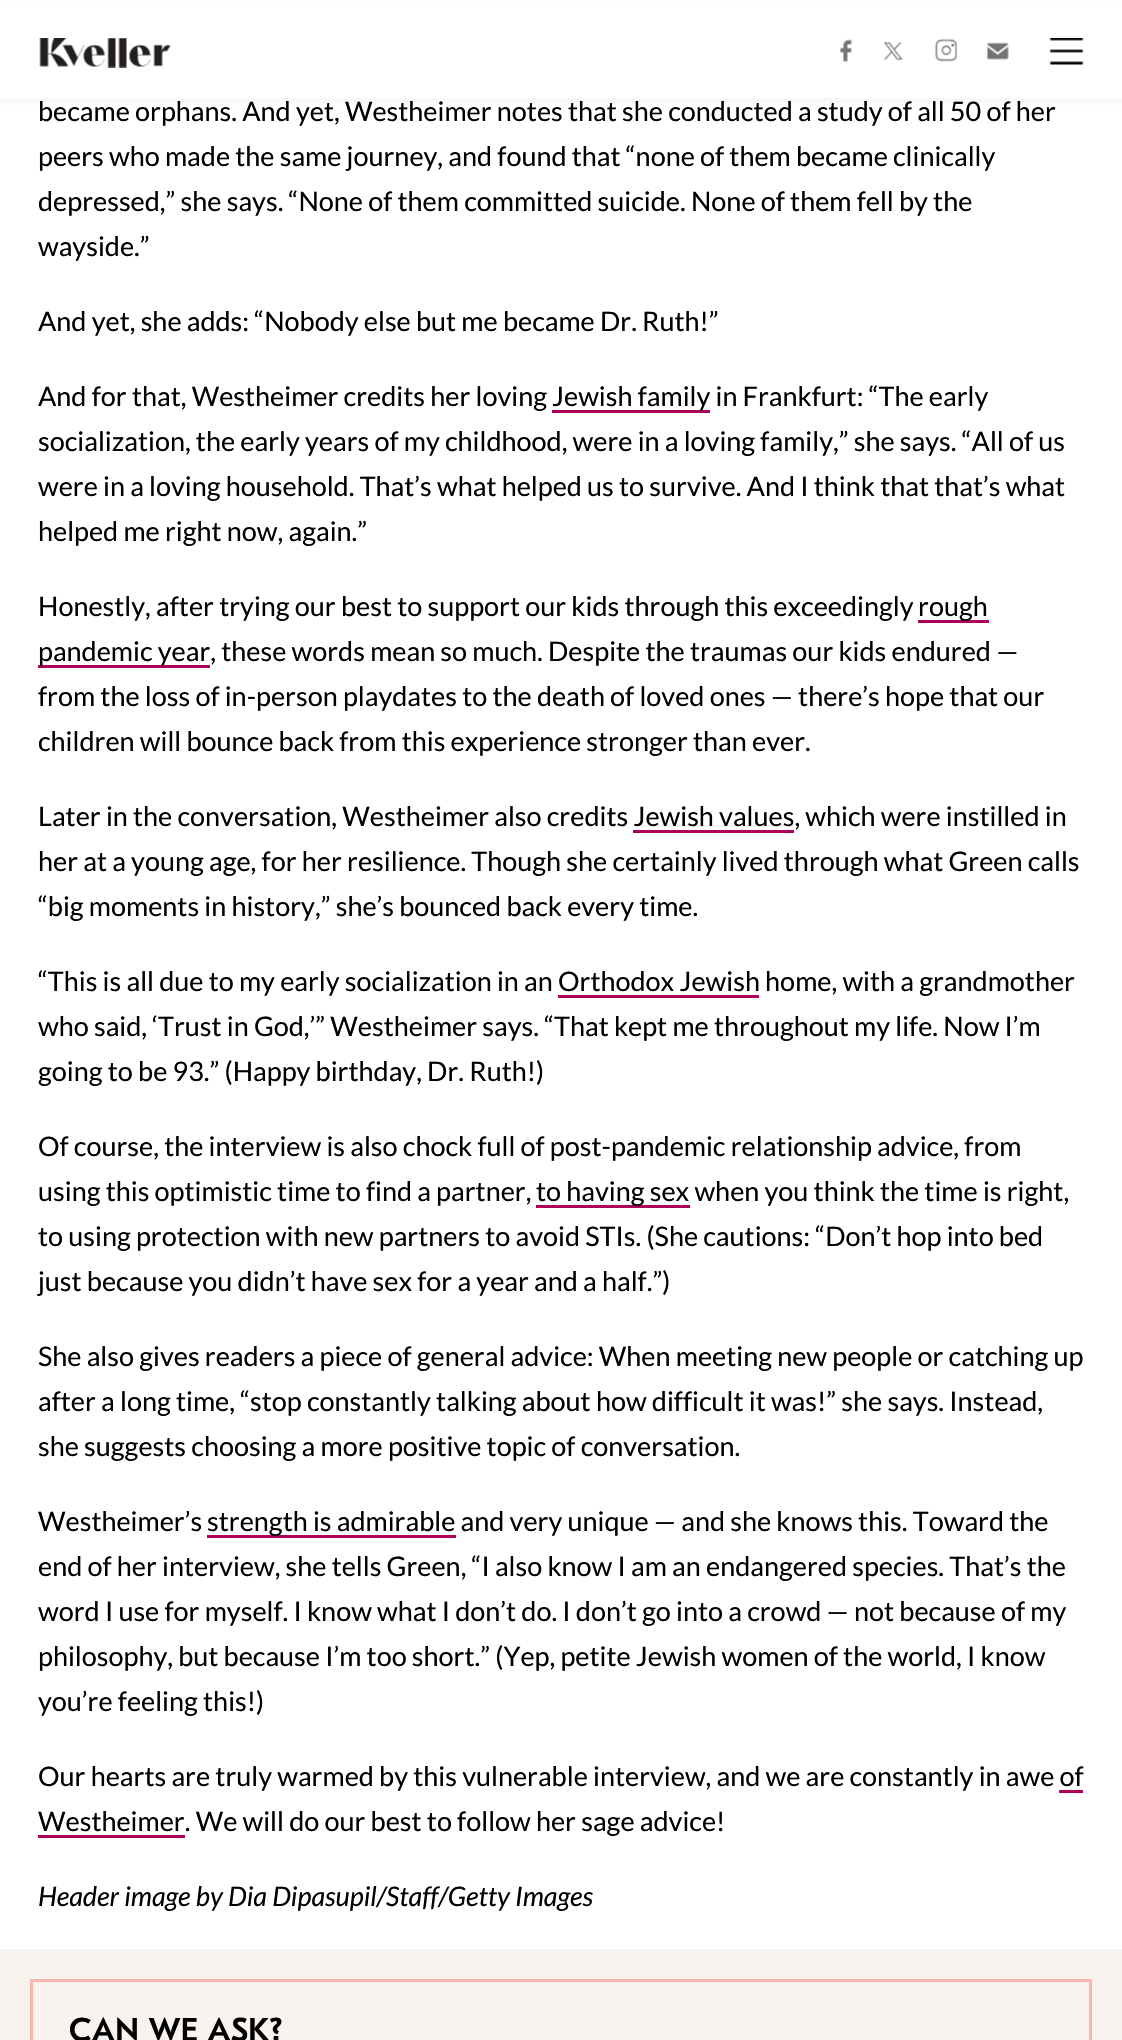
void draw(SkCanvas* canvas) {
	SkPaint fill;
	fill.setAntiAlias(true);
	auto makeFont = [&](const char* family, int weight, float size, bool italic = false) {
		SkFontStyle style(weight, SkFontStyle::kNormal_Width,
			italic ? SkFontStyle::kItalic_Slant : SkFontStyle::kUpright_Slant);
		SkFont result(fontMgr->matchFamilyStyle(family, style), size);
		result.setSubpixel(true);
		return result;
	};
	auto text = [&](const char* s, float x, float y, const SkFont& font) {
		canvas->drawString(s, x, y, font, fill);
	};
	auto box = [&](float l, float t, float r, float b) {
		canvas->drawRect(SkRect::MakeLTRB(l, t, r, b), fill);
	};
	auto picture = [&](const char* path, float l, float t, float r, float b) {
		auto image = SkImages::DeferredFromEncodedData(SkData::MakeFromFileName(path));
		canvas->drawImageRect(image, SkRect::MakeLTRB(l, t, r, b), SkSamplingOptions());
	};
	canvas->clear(0xFFFFFFFF);
	fill.setColor(0x80F2F2F2);
	fill.setMaskFilter(SkMaskFilter::MakeBlur(kNormal_SkBlurStyle, 1.5f));
	canvas->drawRect(SkRect::MakeLTRB(0, 6, 1122, 104), fill);
	fill.setMaskFilter(nullptr);
	fill.setColor(0xFFFFFFFF);
	box(0, 6, 1122, 98);
	picture("image0.png", 39, 38, 171, 68);
	picture("image1.png", 840, 39, 852, 62);
	picture("image2.png", 883, 41, 903, 61);
	picture("image3.png", 935, 39, 958, 62);
	picture("image4.png", 986, 42, 1009, 60);
	picture("image5.png", 1049, 38, 1084, 65);
	fill.setColor(0xFFAD0059);
	box(552, 410, 710, 413);
	box(918, 620, 989, 623);
	box(38, 665, 210, 668);
	box(633, 830, 794, 833);
	box(536, 1205, 690, 1208);
	box(207, 1535, 456, 1538);
	box(38, 1835, 185, 1838);
	fill.setColor(0xFFF9F3EF);
	box(0, 1949, 1122, 2040);
	fill.setStyle(SkPaint::kStroke_Style);
	fill.setStrokeWidth(3);
	fill.setColor(0xFFF9B6AF);
	canvas->drawRect(SkRect::MakeLTRB(31.5f, 1980.5f, 1090.5f, 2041.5f), fill);
	auto font1 = makeFont("Lato", 400, 27);
	fill.setStyle(SkPaint::kFill_Style);
	fill.setColor(0xFF000000);
	text("became orphans. And yet, Westheimer notes that she conducted a study of all 50 of her", 38, 121, font1);
	text("peers who made the same journey, and found that “none of them became clinically", 38, 166, font1);
	text("depressed,” she says. “None of them committed suicide. None of them fell by the", 38, 211, font1);
	text("wayside.”", 38, 256, font1);
	text("And yet, she adds: “Nobody else but me became Dr. Ruth!”", 38, 331, font1);
	text("And for that, Westheimer credits her loving", 38, 406, font1);
	text("Jewish family in Frankfurt: “The early", 552, 406, font1);
	text("socialization, the early years of my childhood, were in a loving family,” she says. “All of us", 38, 451, font1);
	text("were in a loving household. That’s what helped us to survive. And I think that that’s what", 38, 496, font1);
	text("helped me right now, again.”", 38, 541, font1);
	text("Honestly, after trying our best to support our kids through this exceedingly", 38, 616, font1);
	text("rough", 918, 616, font1);
	text("pandemic year, these words mean so much. Despite the traumas our kids endured —", 38, 661, font1);
	text("from the loss of in-person playdates to the death of loved ones — there’s hope that our", 38, 706, font1);
	text("children will bounce back from this experience stronger than ever.", 38, 751, font1);
	text("Later in the conversation, Westheimer also credits Jewish values, which were instilled in", 38, 826, font1);
	text("her at a young age, for her resilience. Though she certainly lived through what Green calls", 38, 871, font1);
	text("“big moments in history,” she’s bounced back every time.", 38, 916, font1);
	text("“This is all due to my early socialization in an Orthodox Jewish home, with a grandmother", 38, 991, font1);
	fill.setColor(0xFFAD0059);
	box(558, 995, 759, 998);
	fill.setColor(0xFF000000);
	text("who said, ‘Trust in God,’” Westheimer says. “That kept me throughout my life. Now I’m", 38, 1036, font1);
	text("going to be 93.” (Happy birthday, Dr. Ruth!)", 38, 1081, font1);
	text("Of course, the interview is also chock full of post-pandemic relationship advice, from", 38, 1156, font1);
	text("using this optimistic time to find a partner,", 38, 1201, font1);
	text("to having sex when you think the time is right,", 536, 1201, font1);
	text("to using protection with new partners to avoid STIs. (She cautions: “Don’t hop into bed", 38, 1246, font1);
	text("just because you didn’t have sex for a year and a half.”)", 38, 1291, font1);
	text("She also gives readers a piece of general advice: When meeting new people or catching up", 38, 1366, font1);
	text("after a long time, “stop constantly talking about how difficult it was!” she says. Instead,", 38, 1411, font1);
	text("she suggests choosing a more positive topic of conversation.", 38, 1456, font1);
	text("Westheimer’s", 38, 1531, font1);
	text("strength is admirable and very unique — and she knows this. Toward the", 207, 1531, font1);
	text("end of her interview, she tells Green, “I also know I am an endangered species. That’s the", 38, 1576, font1);
	text("word I use for myself. I know what I don’t do. I don’t go into a crowd — not because of my", 38, 1621, font1);
	text("philosophy, but because I’m too short.” (Yep, petite Jewish women of the world, I know", 38, 1666, font1);
	text("you’re feeling this!)", 38, 1711, font1);
	text("Our hearts are truly warmed by this vulnerable interview, and we are constantly in awe of", 38, 1786, font1);
	text("Westheimer. We will do our best to follow her sage advice!", 38, 1831, font1);
	fill.setColor(0xFFAD0059);
	box(1059, 1790, 1083, 1793);
	auto font2 = makeFont("Lato", 400, 27, true);
	fill.setColor(0xFF000000);
	text("Header image by Dia Dipasupil/Staff/Getty Images", 38, 1906, font2);
	auto font3 = makeFont("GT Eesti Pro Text", 500, 33);
	text("CAN WE ASK?", 69, 2041, font3);
}
